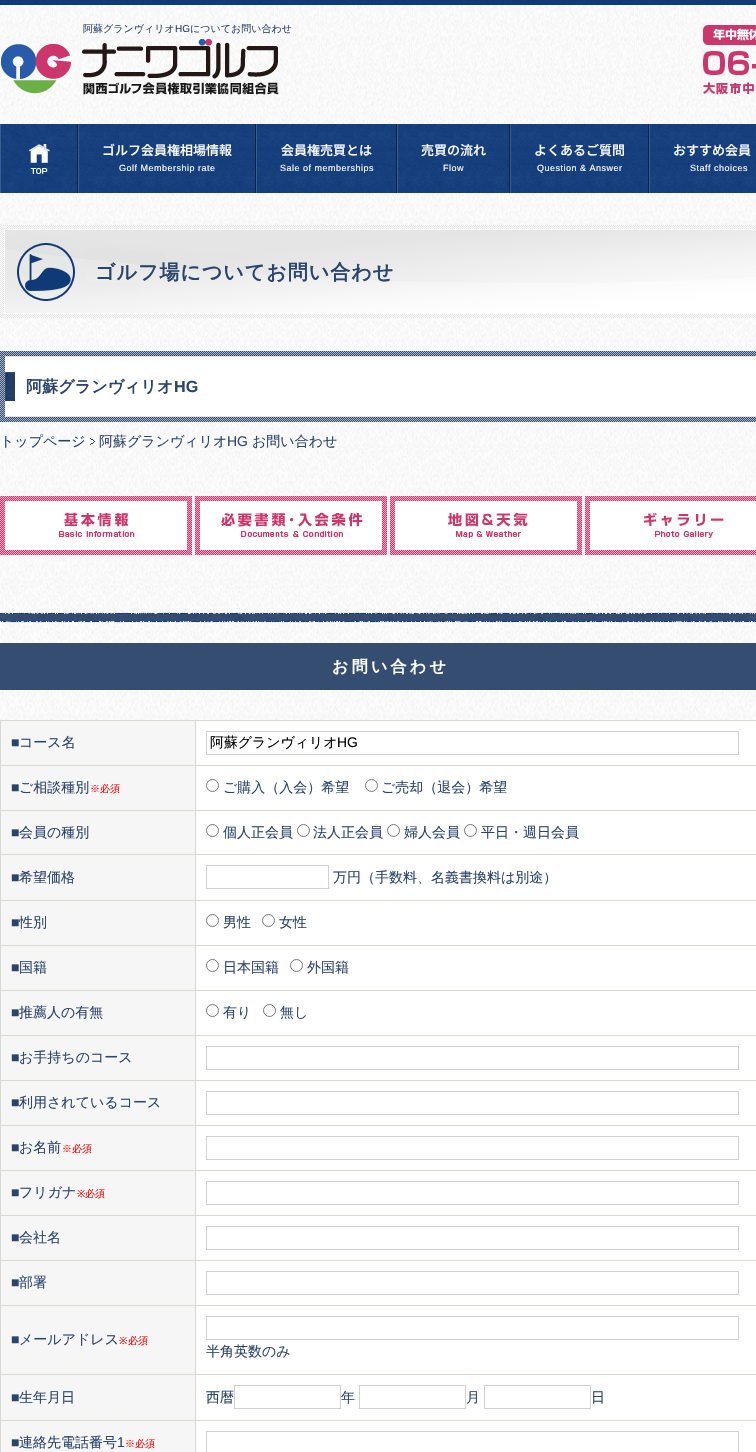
void draw(SkCanvas* canvas) {
	SkPaint fill;
	fill.setAntiAlias(true);
	auto makeFont = [&](const char* family, int weight, float size, bool italic = false) {
		SkFontStyle style(weight, SkFontStyle::kNormal_Width,
			italic ? SkFontStyle::kItalic_Slant : SkFontStyle::kUpright_Slant);
		SkFont result(fontMgr->matchFamilyStyle(family, style), size);
		result.setSubpixel(true);
		return result;
	};
	auto text = [&](const char* s, float x, float y, const SkFont& font) {
		canvas->drawString(s, x, y, font, fill);
	};
	auto spacedText = [&](const char* s, float x, float y, const SkFont& font, const SkPaint& ink, float letter, float word) {
		std::vector<SkGlyphID> glyphs(font.countText(s, strlen(s), SkTextEncoding::kUTF8));
		std::vector<float> xs(glyphs.size());
		font.textToGlyphs(s, strlen(s), SkTextEncoding::kUTF8, glyphs);
		font.getXPos(glyphs, xs, x);
		float extra = 0;
		for (size_t i = 0; i < glyphs.size(); i++) {
			xs[i] += extra;
			extra += letter + word * (glyphs[i] == font.unicharToGlyph(' '));
		}
		canvas->drawTextBlob(SkTextBlob::MakeFromPosHGlyphs(glyphs, xs, y, font), 0, 0, ink);
	};
	auto box = [&](float l, float t, float r, float b) {
		canvas->drawRect(SkRect::MakeLTRB(l, t, r, b), fill);
	};
	auto picture = [&](const char* path, float l, float t, float r, float b) {
		auto image = SkImages::DeferredFromEncodedData(SkData::MakeFromFileName(path));
		canvas->drawImageRect(image, SkRect::MakeLTRB(l, t, r, b), SkSamplingOptions());
	};
	canvas->clear(0xFFFFFFFF);
	picture("image0.png", 0, 193, 756, 720);
	picture("image1.png", 0, 0, 756, 124);
	picture("image2.png", 702, 5, 756, 124);
	picture("image3.png", 0, 39, 279, 95);
	picture("image4.png", 79, 124, 756, 193);
	fill.setColor(0xFF092246);
	box(77, 124, 78, 193);
	fill.setColor(0xFF3B5E92);
	box(0, 124, 1, 193);
	picture("image5.png", 1, 124, 77, 193);
	fill.setColor(0xFF092246);
	box(255, 124, 256, 193);
	fill.setColor(0xFF3B5E92);
	box(78, 124, 79, 193);
	fill.setColor(0xFF092246);
	box(396, 124, 397, 193);
	fill.setColor(0xFF3B5E92);
	box(256, 124, 257, 193);
	fill.setColor(0xFF092246);
	box(509, 124, 510, 193);
	fill.setColor(0xFF3B5E92);
	box(397, 124, 398, 193);
	fill.setColor(0xFF092246);
	box(648, 124, 649, 193);
	fill.setColor(0xFF3B5E92);
	box(510, 124, 511, 193);
	box(649, 124, 650, 193);
	picture("image6.png", 0, 225, 756, 318);
	picture("image7.png", 0, 351, 756, 422);
	picture("image8.png", 89, 437, 95, 445);
	picture("image9.png", 0, 496, 192, 562);
	picture("image10.png", 195, 496, 387, 562);
	picture("image11.png", 390, 496, 582, 562);
	picture("image12.png", 585, 496, 756, 562);
	picture("image13.png", 0, 612, 756, 623);
	fill.setColor(0xFF344D71);
	box(0, 643, 756, 690);
	fill.setColor(0xFFDAD8D2);
	box(0, 720, 756, 721);
	box(0, 720, 1, 1452);
	fill.setColor(0xFFF6F6F6);
	box(1, 721, 195, 765);
	fill.setColor(0xFFDAD8D2);
	box(195, 765, 756, 766);
	box(195, 810, 756, 811);
	box(195, 854, 756, 855);
	box(195, 900, 756, 901);
	box(195, 945, 756, 946);
	box(195, 990, 756, 991);
	box(195, 1035, 756, 1036);
	box(195, 1080, 756, 1081);
	box(195, 1125, 756, 1126);
	box(195, 1170, 756, 1171);
	box(195, 1215, 756, 1216);
	box(195, 1260, 756, 1261);
	box(195, 1305, 756, 1306);
	box(195, 1374, 756, 1375);
	box(195, 1420, 756, 1421);
	box(195, 1420, 196, 1452);
	box(0, 1420, 196, 1421);
	box(195, 1374, 196, 1421);
	box(0, 1374, 196, 1375);
	box(195, 1305, 196, 1375);
	box(0, 1305, 196, 1306);
	box(195, 1260, 196, 1306);
	box(0, 1260, 196, 1261);
	box(195, 1215, 196, 1261);
	box(0, 1215, 196, 1216);
	box(195, 1170, 196, 1216);
	box(0, 1170, 196, 1171);
	box(195, 1125, 196, 1171);
	box(0, 1125, 196, 1126);
	box(195, 1080, 196, 1126);
	box(0, 1080, 196, 1081);
	box(195, 1035, 196, 1081);
	box(0, 1035, 196, 1036);
	box(195, 990, 196, 1036);
	box(0, 990, 196, 991);
	box(195, 945, 196, 991);
	box(0, 945, 196, 946);
	box(195, 900, 196, 946);
	box(0, 900, 196, 901);
	box(195, 854, 196, 901);
	box(0, 854, 196, 855);
	box(195, 810, 196, 855);
	box(0, 810, 196, 811);
	box(195, 765, 196, 811);
	box(0, 765, 196, 766);
	box(195, 720, 196, 766);
	fill.setStyle(SkPaint::kStroke_Style);
	fill.setStrokeWidth(1);
	fill.setColor(0xFFD2D1D0);
	canvas->drawRect(SkRect::MakeLTRB(206.5f, 731.5f, 738.5f, 754.5f), fill);
	fill.setStyle(SkPaint::kFill_Style);
	fill.setColor(0xFFF6F6F6);
	box(1, 766, 195, 810);
	fill.setStyle(SkPaint::kStroke_Style);
	fill.setColor(0xFF767676);
	canvas->drawCircle(212.5f, 785.5f, 6, fill);
	canvas->drawCircle(371.5f, 785.5f, 6, fill);
	fill.setStyle(SkPaint::kFill_Style);
	fill.setColor(0xFFF6F6F6);
	box(1, 811, 195, 854);
	fill.setStyle(SkPaint::kStroke_Style);
	fill.setColor(0xFF767676);
	canvas->drawCircle(212.5f, 830.5f, 6, fill);
	canvas->drawCircle(303.5f, 830.5f, 6, fill);
	canvas->drawCircle(393.5f, 830.5f, 6, fill);
	canvas->drawCircle(470.5f, 830.5f, 6, fill);
	fill.setStyle(SkPaint::kFill_Style);
	fill.setColor(0xFFF6F6F6);
	box(1, 855, 195, 900);
	fill.setStyle(SkPaint::kStroke_Style);
	fill.setColor(0xFFD2D1D0);
	canvas->drawRect(SkRect::MakeLTRB(206.5f, 865.5f, 328.5f, 888.5f), fill);
	fill.setStyle(SkPaint::kFill_Style);
	fill.setColor(0xFFF6F6F6);
	box(1, 901, 195, 945);
	fill.setStyle(SkPaint::kStroke_Style);
	fill.setColor(0xFF767676);
	canvas->drawCircle(212.5f, 920.5f, 6, fill);
	canvas->drawCircle(268.5f, 920.5f, 6, fill);
	fill.setStyle(SkPaint::kFill_Style);
	fill.setColor(0xFFF6F6F6);
	box(1, 946, 195, 990);
	fill.setStyle(SkPaint::kStroke_Style);
	fill.setColor(0xFF767676);
	canvas->drawCircle(212.5f, 965.5f, 6, fill);
	canvas->drawCircle(296.5f, 965.5f, 6, fill);
	fill.setStyle(SkPaint::kFill_Style);
	fill.setColor(0xFFF6F6F6);
	box(1, 991, 195, 1035);
	fill.setStyle(SkPaint::kStroke_Style);
	fill.setColor(0xFF767676);
	canvas->drawCircle(212.5f, 1010.5f, 6, fill);
	canvas->drawCircle(269.5f, 1010.5f, 6, fill);
	fill.setStyle(SkPaint::kFill_Style);
	fill.setColor(0xFFF6F6F6);
	box(1, 1036, 195, 1080);
	fill.setStyle(SkPaint::kStroke_Style);
	fill.setColor(0xFFD2D1D0);
	canvas->drawRect(SkRect::MakeLTRB(206.5f, 1046.5f, 738.5f, 1069.5f), fill);
	fill.setStyle(SkPaint::kFill_Style);
	fill.setColor(0xFFF6F6F6);
	box(1, 1081, 195, 1125);
	fill.setStyle(SkPaint::kStroke_Style);
	fill.setColor(0xFFD2D1D0);
	canvas->drawRect(SkRect::MakeLTRB(206.5f, 1091.5f, 738.5f, 1114.5f), fill);
	fill.setStyle(SkPaint::kFill_Style);
	fill.setColor(0xFFF6F6F6);
	box(1, 1126, 195, 1170);
	fill.setStyle(SkPaint::kStroke_Style);
	fill.setColor(0xFFD2D1D0);
	canvas->drawRect(SkRect::MakeLTRB(206.5f, 1136.5f, 738.5f, 1159.5f), fill);
	fill.setStyle(SkPaint::kFill_Style);
	fill.setColor(0xFFF6F6F6);
	box(1, 1171, 195, 1215);
	fill.setStyle(SkPaint::kStroke_Style);
	fill.setColor(0xFFD2D1D0);
	canvas->drawRect(SkRect::MakeLTRB(206.5f, 1181.5f, 738.5f, 1204.5f), fill);
	fill.setStyle(SkPaint::kFill_Style);
	fill.setColor(0xFFF6F6F6);
	box(1, 1216, 195, 1260);
	fill.setStyle(SkPaint::kStroke_Style);
	fill.setColor(0xFFD2D1D0);
	canvas->drawRect(SkRect::MakeLTRB(206.5f, 1226.5f, 738.5f, 1249.5f), fill);
	fill.setStyle(SkPaint::kFill_Style);
	fill.setColor(0xFFF6F6F6);
	box(1, 1261, 195, 1305);
	fill.setStyle(SkPaint::kStroke_Style);
	fill.setColor(0xFFD2D1D0);
	canvas->drawRect(SkRect::MakeLTRB(206.5f, 1271.5f, 738.5f, 1294.5f), fill);
	fill.setStyle(SkPaint::kFill_Style);
	fill.setColor(0xFFF6F6F6);
	box(1, 1306, 195, 1374);
	fill.setStyle(SkPaint::kStroke_Style);
	fill.setColor(0xFFD2D1D0);
	canvas->drawRect(SkRect::MakeLTRB(206.5f, 1316.5f, 738.5f, 1339.5f), fill);
	fill.setStyle(SkPaint::kFill_Style);
	fill.setColor(0xFFF6F6F6);
	box(1, 1375, 195, 1420);
	fill.setStyle(SkPaint::kStroke_Style);
	fill.setColor(0xFFD2D1D0);
	canvas->drawRect(SkRect::MakeLTRB(234.5f, 1385.5f, 340.5f, 1408.5f), fill);
	canvas->drawRect(SkRect::MakeLTRB(359.5f, 1385.5f, 465.5f, 1408.5f), fill);
	canvas->drawRect(SkRect::MakeLTRB(484.5f, 1385.5f, 590.5f, 1408.5f), fill);
	fill.setStyle(SkPaint::kFill_Style);
	fill.setColor(0xFFF6F6F6);
	box(1, 1421, 195, 1452);
	fill.setStyle(SkPaint::kStroke_Style);
	fill.setColor(0xFFD2D1D0);
	canvas->drawRect(SkRect::MakeLTRB(206.5f, 1431.5f, 738.5f, 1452.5f), fill);
	auto font1 = makeFont("WenQuanYi Zen Hei", 500, 10);
	fill.setStyle(SkPaint::kFill_Style);
	fill.setColor(0xFF2B446C);
	text("阿蘇グランヴィリオ", 83, 32, font1);
	auto font2 = makeFont("Liberation Sans", 400, 10);
	text("HG", 175, 32, font2);
	text("についてお問い合わせ", 190, 32, font1);
	auto font3 = makeFont("Noto Sans JP", 500, 13);
	fill.setColor(0xFFFFFFFF);
	text("ゴルフ会員権相場情報", 102, 155, font3);
	auto font4 = makeFont("Liberation Sans", 400, 9);
	spacedText("Golf Membership rate", 119, 171, font4, fill, 0.5f, 0);
	text("会員権売買とは", 281, 155, font3);
	spacedText("Sale of memberships", 280, 171, font4, fill, 0.5f, 0);
	text("売買の流れ", 421, 155, font3);
	spacedText("Flow", 443, 171, font4, fill, 0.5f, 0);
	text("よくあるご質問", 534, 155, font3);
	spacedText("Question & Answer", 537, 171, font4, fill, 0.5f, 0);
	text("おすすめ会員", 673, 155, font3);
	spacedText("Staff choices", 690, 171, font4, fill, 0.5f, 0);
	auto font5 = makeFont("WenQuanYi Zen Hei", 700, 20);
	fill.setColor(0xFF2B446C);
	spacedText("ゴルフ場についてお問い合わせ", 95, 279, font5, fill, 1, 0);
	auto font6 = makeFont("WenQuanYi Zen Hei", 700, 16.1f);
	text("阿蘇グランヴィリオ", 26, 392, font6);
	auto font7 = makeFont("Liberation Sans", 700, 16.1f);
	text("HG", 174, 392, font7);
	auto font8 = makeFont("WenQuanYi Zen Hei", 500, 14);
	fill.setColor(0xFF25416B);
	text("トップページ", 0, 446, font8);
	fill.setColor(0xFF2B446C);
	text("阿蘇グランヴィリオ", 99, 446, font8);
	auto font9 = makeFont("Liberation Sans", 400, 14);
	text("HG", 227, 446, font9);
	text("お問い合わせ", 252, 446, font8);
	auto font10 = makeFont("WenQuanYi Zen Hei", 700, 16);
	fill.setColor(0xFFFFFFFF);
	spacedText("お問い合わせ", 332, 672, font10, fill, 3.25f, 0);
	fill.setColor(0xFF2B446C);
	text("■", 11, 747, font9);
	text("コース名", 19, 747, font8);
	auto font11 = makeFont("WenQuanYi Zen Hei", 500, 13.9f);
	fill.setColor(0xFF000000);
	text("阿蘇グランヴィリオ", 210, 747, font11);
	auto font12 = makeFont("Liberation Sans", 400, 13.9f);
	text("HG", 337, 747, font12);
	fill.setColor(0xFF2B446C);
	text("■", 11, 792, font9);
	text("ご相談種別", 19, 792, font8);
	fill.setColor(0xFFFF0000);
	text("※必須", 90, 792, font1);
	fill.setColor(0xFF2B446C);
	text("ご購入（入会）希望", 223, 792, font8);
	text("ご売却（退会）希望", 381, 792, font8);
	text("■", 11, 837, font9);
	text("会員の種別", 19, 837, font8);
	text("個人正会員", 223, 837, font8);
	text("法人正会員", 313, 837, font8);
	text("婦人会員", 404, 837, font8);
	text("平日・週日会員", 481, 837, font8);
	text("■", 11, 882, font9);
	text("希望価格", 19, 882, font8);
	text("万円（手数料、名義書換料は別途）", 333, 882, font8);
	text("■", 11, 927, font9);
	text("性別", 19, 927, font8);
	text("男性", 223, 927, font8);
	text("女性", 279, 927, font8);
	text("■", 11, 972, font9);
	text("国籍", 19, 972, font8);
	text("日本国籍", 223, 972, font8);
	text("外国籍", 307, 972, font8);
	text("■", 11, 1017, font9);
	text("推薦人の有無", 19, 1017, font8);
	text("有り", 223, 1017, font8);
	text("無し", 280, 1017, font8);
	text("■", 11, 1062, font9);
	text("お手持ちのコース", 19, 1062, font8);
	text("■", 11, 1107, font9);
	text("利用されているコース", 19, 1107, font8);
	text("■", 11, 1152, font9);
	text("お名前", 19, 1152, font8);
	fill.setColor(0xFFFF0000);
	text("※必須", 62, 1152, font1);
	fill.setColor(0xFF2B446C);
	text("■", 11, 1197, font9);
	text("フリガナ", 19, 1197, font8);
	auto font13 = makeFont("Noto Sans", 400, 10);
	fill.setColor(0xFFFF0000);
	text("※", 77, 1197, font13);
	text("必須", 85, 1197, font1);
	fill.setColor(0xFF2B446C);
	text("■", 11, 1242, font9);
	text("会社名", 19, 1242, font8);
	text("■", 11, 1287, font9);
	text("部署", 19, 1287, font8);
	text("■", 11, 1344, font9);
	text("メールアドレス", 19, 1344, font8);
	fill.setColor(0xFFFF0000);
	text("※", 119, 1344, font13);
	text("必須", 128, 1344, font1);
	fill.setColor(0xFF2B446C);
	text("半角英数のみ", 206, 1356, font8);
	text("■", 11, 1402, font9);
	text("生年月日", 19, 1402, font8);
	text("西暦", 206, 1402, font8);
	text("年", 341, 1402, font8);
	text("月", 466, 1402, font8);
	text("日", 591, 1402, font8);
	text("■", 11, 1447, font9);
	text("連絡先電話番号", 19, 1447, font8);
	text("1", 117, 1447, font9);
	fill.setColor(0xFFFF0000);
	text("※必須", 125, 1447, font1);
}
